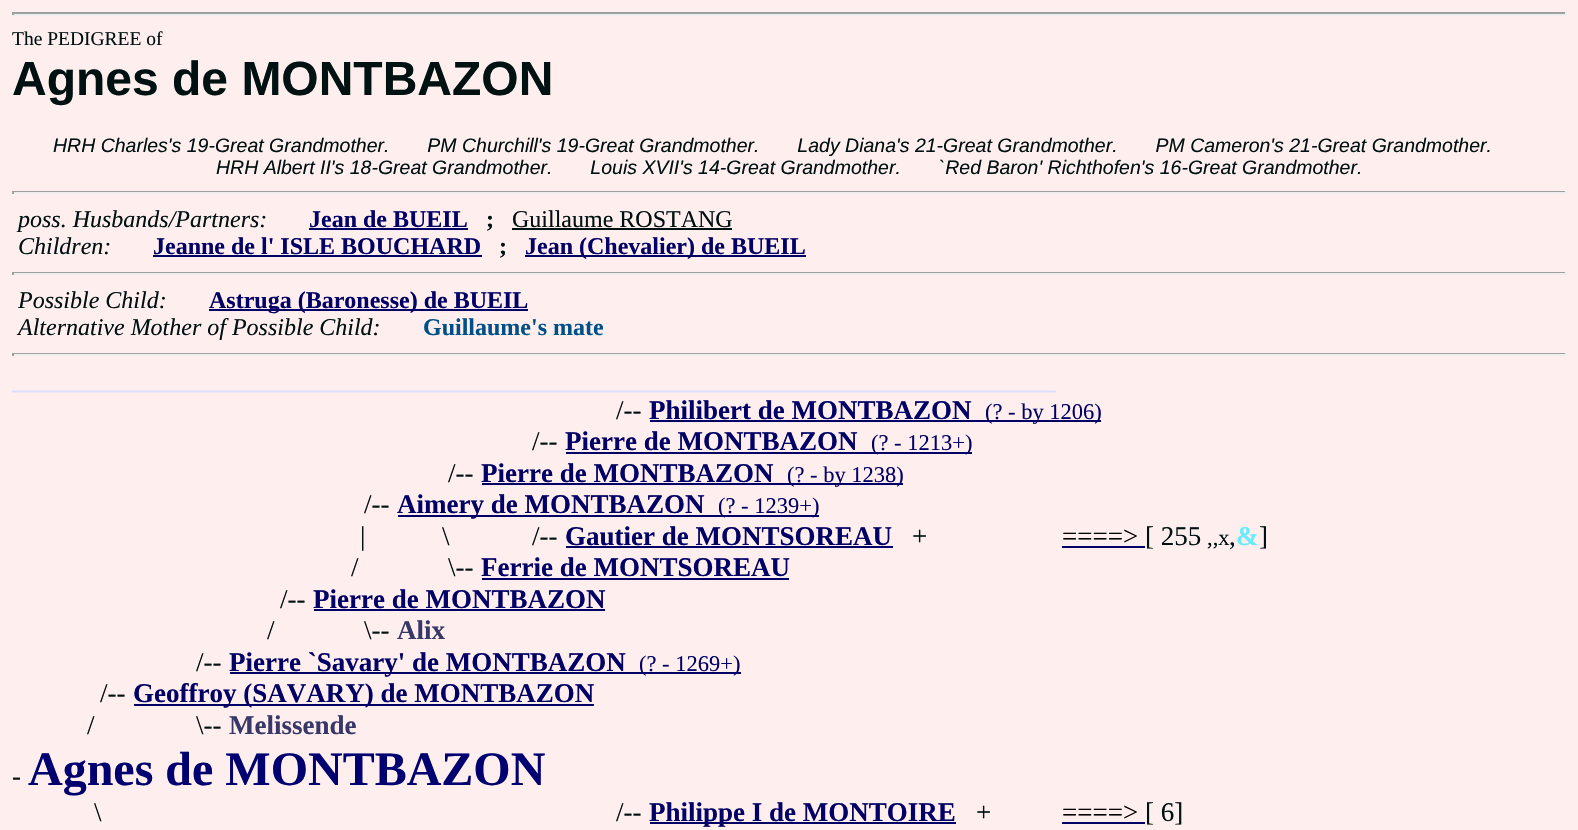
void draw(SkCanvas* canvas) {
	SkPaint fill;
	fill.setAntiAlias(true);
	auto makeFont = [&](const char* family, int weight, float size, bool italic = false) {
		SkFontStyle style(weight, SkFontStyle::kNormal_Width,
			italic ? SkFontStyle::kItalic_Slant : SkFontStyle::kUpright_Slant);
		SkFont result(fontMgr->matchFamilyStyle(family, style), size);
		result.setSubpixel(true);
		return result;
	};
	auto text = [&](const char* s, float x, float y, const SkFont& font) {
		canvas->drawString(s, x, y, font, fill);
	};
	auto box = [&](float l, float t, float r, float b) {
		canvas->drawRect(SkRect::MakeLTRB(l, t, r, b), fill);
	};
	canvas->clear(0xFFFFEEEE);
	fill.setColor(0xFF9F9F9F);
	box(12, 12, 1566, 14);
	fill.setColor(0xFFEEEEEE);
	box(1565, 12, 1567, 15);
	box(12, 14, 1566, 16);
	fill.setColor(0xFF9F9F9F);
	box(12, 12, 14, 15);
	box(12, 191, 1566, 192);
	fill.setColor(0xFFEEEEEE);
	box(1565, 191, 1567, 194);
	box(12, 192, 1566, 194);
	fill.setColor(0xFF9F9F9F);
	box(12, 191, 14, 194);
	fill.setColor(0xFF000066);
	box(309, 228, 468, 230);
	fill.setColor(0xFF001111);
	box(512, 228, 732, 230);
	fill.setColor(0xFF000066);
	box(153, 255, 482, 257);
	box(525, 255, 806, 257);
	fill.setColor(0xFF9F9F9F);
	box(12, 272, 1566, 273);
	fill.setColor(0xFFEEEEEE);
	box(1565, 272, 1567, 275);
	box(12, 273, 1566, 275);
	fill.setColor(0xFF9F9F9F);
	box(12, 272, 14, 275);
	fill.setColor(0xFF000066);
	box(209, 309, 528, 311);
	fill.setColor(0xFF9F9F9F);
	box(12, 353, 1566, 354);
	fill.setColor(0xFFEEEEEE);
	box(1565, 353, 1567, 356);
	box(12, 354, 1566, 356);
	fill.setColor(0xFF9F9F9F);
	box(12, 353, 14, 356);
	fill.setColor(0xFF000066);
	box(650, 420, 1101, 422);
	box(566, 452, 972, 454);
	box(482, 483, 903, 485);
	box(398, 515, 819, 517);
	box(566, 546, 893, 548);
	box(1062, 546, 1145, 548);
	box(482, 578, 789, 580);
	box(314, 609, 605, 611);
	box(230, 672, 741, 674);
	box(134, 704, 594, 706);
	box(650, 822, 956, 824);
	box(1062, 822, 1145, 824);
	auto font1 = makeFont("Liberation Serif", 400, 19.5f);
	fill.setColor(0xFF001111);
	text("The PEDIGREE of", 12, 45, font1);
	auto font2 = makeFont("Liberation Sans", 700, 48);
	text("Agnes de MONTBAZON", 12, 95, font2);
	auto font3 = makeFont("Liberation Sans", 400, 19.5f, true);
	text("HRH Charles's 19-Great Grandmother.       PM Churchill's 19-Great Grandmother.       Lady Diana's 21-Great Grandmother.       PM Cameron's 21-Great Grandmother.", 53, 152, font3);
	text("HRH Albert II's 18-Great Grandmother.       Louis XVII's 14-Great Grandmother.       `Red Baron' Richthofen's 16-Great Grandmother.", 216, 174, font3);
	auto font4 = makeFont("Liberation Serif", 400, 24, true);
	text("poss. Husbands/Partners:", 18, 227, font4);
	auto font5 = makeFont("Liberation Serif", 700, 24);
	fill.setColor(0xFF000066);
	text("Jean de BUEIL", 309, 227, font5);
	fill.setColor(0xFF001111);
	text(";", 486, 227, font5);
	auto font6 = makeFont("Liberation Serif", 400, 24);
	text("Guillaume ROSTANG", 512, 227, font6);
	text("Children:", 18, 254, font4);
	fill.setColor(0xFF000066);
	text("Jeanne de l' ISLE BOUCHARD", 153, 254, font5);
	fill.setColor(0xFF001111);
	text(";", 499, 254, font5);
	fill.setColor(0xFF000066);
	text("Jean (Chevalier) de BUEIL", 525, 254, font5);
	fill.setColor(0xFF001111);
	text("Possible Child:", 18, 308, font4);
	fill.setColor(0xFF000066);
	text("Astruga (Baronesse) de BUEIL", 209, 308, font5);
	fill.setColor(0xFF001111);
	text("Alternative Mother of Possible Child:", 18, 335, font4);
	fill.setColor(0xFF005088);
	text("Guillaume's mate", 423, 335, font5);
	fill.setColor(0xFFDDDDFF);
	text("_______________________________________________________________________________________", 12, 389, font5);
	auto font7 = makeFont("Liberation Serif", 400, 27);
	fill.setColor(0xFF001111);
	text("/--", 616, 419, font7);
	auto font8 = makeFont("Liberation Serif", 700, 27);
	fill.setColor(0xFF000066);
	text("Philibert de MONTBAZON", 649, 419, font8);
	auto font9 = makeFont("Liberation Serif", 400, 22.5f);
	text("(? - by 1206)", 985, 419, font9);
	fill.setColor(0xFF001111);
	text("/--", 532, 450, font7);
	fill.setColor(0xFF000066);
	text("Pierre de MONTBAZON", 565, 450, font8);
	text("(? - 1213+)", 871, 450, font9);
	fill.setColor(0xFF001111);
	text("/--", 448, 482, font7);
	fill.setColor(0xFF000066);
	text("Pierre de MONTBAZON", 481, 482, font8);
	text("(? - by 1238)", 787, 482, font9);
	fill.setColor(0xFF001111);
	text("/--", 364, 513, font7);
	fill.setColor(0xFF000066);
	text("Aimery de MONTBAZON", 397, 513, font8);
	text("(? - 1239+)", 718, 513, font9);
	fill.setColor(0xFF001111);
	text("|", 360, 545, font7);
	text("\\", 442, 545, font7);
	text("/--", 532, 545, font7);
	fill.setColor(0xFF000066);
	text("Gautier de MONTSOREAU", 565, 545, font8);
	fill.setColor(0xFF001111);
	text("+", 912, 545, font7);
	fill.setColor(0xFF000000);
	text("====>", 1062, 545, font7);
	fill.setColor(0xFF001111);
	text("[ 255", 1145, 545, font7);
	text(",,x", 1207, 545, font9);
	text(",", 1229, 545, font7);
	fill.setColor(0xFF68ECFC);
	text("&", 1236, 545, font8);
	fill.setColor(0xFF001111);
	text("]", 1259, 545, font7);
	text("/", 351, 576, font7);
	text("\\--", 448, 576, font7);
	fill.setColor(0xFF000066);
	text("Ferrie de MONTSOREAU", 481, 576, font8);
	fill.setColor(0xFF001111);
	text("/--", 280, 608, font7);
	fill.setColor(0xFF000066);
	text("Pierre de MONTBAZON", 313, 608, font8);
	fill.setColor(0xFF001111);
	text("/", 267, 639, font7);
	text("\\--", 364, 639, font7);
	fill.setColor(0xFF383868);
	text("Alix", 397, 639, font8);
	fill.setColor(0xFF001111);
	text("/--", 196, 671, font7);
	fill.setColor(0xFF000066);
	text("Pierre `Savary' de MONTBAZON", 229, 671, font8);
	text("(? - 1269+)", 639, 671, font9);
	fill.setColor(0xFF001111);
	text("/--", 100, 702, font7);
	fill.setColor(0xFF000066);
	text("Geoffroy (SAVARY) de MONTBAZON", 133, 702, font8);
	fill.setColor(0xFF001111);
	text("/", 87, 734, font7);
	text("\\--", 196, 734, font7);
	fill.setColor(0xFF383868);
	text("Melissende", 229, 734, font8);
	fill.setColor(0xFF001111);
	text("-", 12, 785, font7);
	auto font10 = makeFont("Liberation Serif", 700, 48);
	fill.setColor(0xFF000070);
	text("Agnes de MONTBAZON", 28, 785, font10);
	fill.setColor(0xFF001111);
	text("\\", 94, 821, font7);
	text("/--", 616, 821, font7);
	fill.setColor(0xFF000066);
	text("Philippe I de MONTOIRE", 649, 821, font8);
	fill.setColor(0xFF001111);
	text("+", 976, 821, font7);
	fill.setColor(0xFF000000);
	text("====>", 1062, 821, font7);
	fill.setColor(0xFF001111);
	text("[ 6]", 1145, 821, font7);
}
